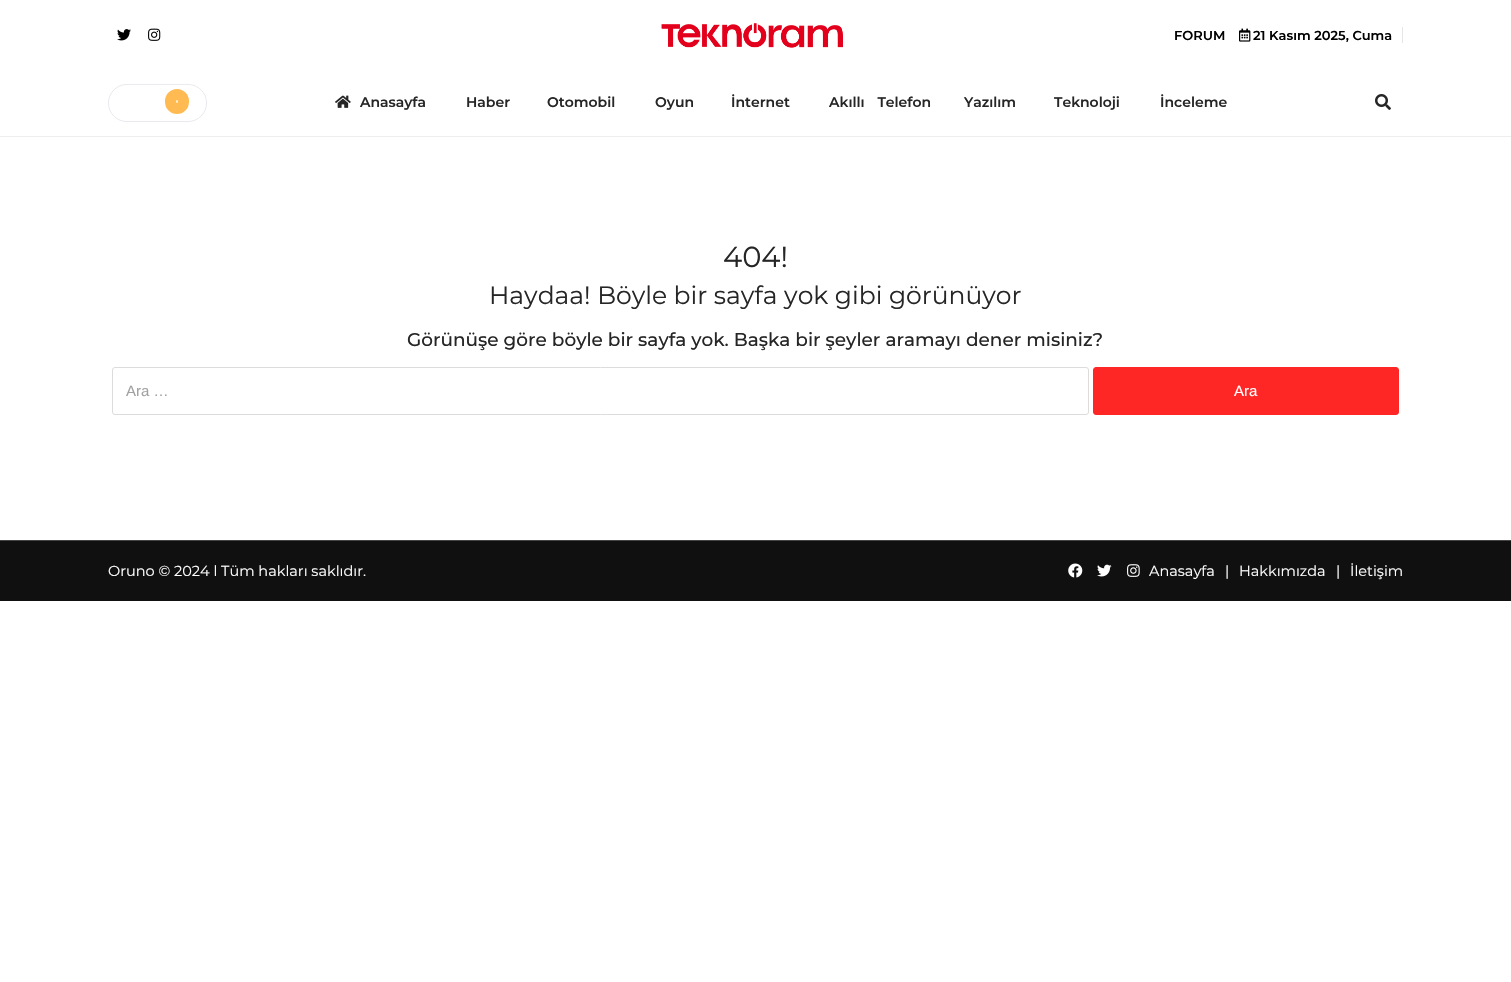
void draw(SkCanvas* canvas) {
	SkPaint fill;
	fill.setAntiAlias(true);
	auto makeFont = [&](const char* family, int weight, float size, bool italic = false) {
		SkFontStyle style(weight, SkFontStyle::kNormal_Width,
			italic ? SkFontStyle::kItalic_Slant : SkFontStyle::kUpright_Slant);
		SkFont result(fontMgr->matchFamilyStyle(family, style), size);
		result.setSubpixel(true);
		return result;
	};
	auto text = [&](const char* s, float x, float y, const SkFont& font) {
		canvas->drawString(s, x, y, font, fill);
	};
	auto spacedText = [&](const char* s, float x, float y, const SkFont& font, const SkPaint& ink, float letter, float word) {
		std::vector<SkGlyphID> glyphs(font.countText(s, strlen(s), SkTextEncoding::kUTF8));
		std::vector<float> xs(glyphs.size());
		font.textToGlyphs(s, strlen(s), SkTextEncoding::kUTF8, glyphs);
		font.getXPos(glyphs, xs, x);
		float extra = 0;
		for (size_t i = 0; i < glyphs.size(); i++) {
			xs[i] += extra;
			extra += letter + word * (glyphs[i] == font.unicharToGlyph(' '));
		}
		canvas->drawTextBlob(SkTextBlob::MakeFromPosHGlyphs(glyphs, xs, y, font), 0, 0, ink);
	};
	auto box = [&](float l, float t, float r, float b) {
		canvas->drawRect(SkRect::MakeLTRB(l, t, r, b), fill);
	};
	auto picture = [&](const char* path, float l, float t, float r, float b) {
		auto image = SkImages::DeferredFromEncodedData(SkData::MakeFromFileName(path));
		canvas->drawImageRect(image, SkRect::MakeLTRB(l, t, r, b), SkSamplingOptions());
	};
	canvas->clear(0xFFFFFFFF);
	fill.setColor(0xFFEEEEEE);
	box(0, 136, 1511, 137);
	picture("image0.png", 117, 29, 131, 41);
	picture("image1.png", 148, 28, 161, 41);
	picture("image2.png", 661, 23, 843, 48);
	picture("image3.png", 1239, 28, 1251, 42);
	fill.setColor(0xFFE6E6E6);
	box(1402, 27, 1403, 43);
	fill.setStyle(SkPaint::kStroke_Style);
	fill.setStrokeWidth(0.9f);
	fill.setColor(0xFFE4E7EC);
	canvas->drawRoundRect(SkRect::MakeLTRB(108.45f, 84.45f, 206.55f, 121.55f), 18.55f, 18.55f, fill);
	fill.setStyle(SkPaint::kFill_Style);
	fill.setColor(0xFFFFECCF);
	canvas->drawRoundRect(SkRect::MakeLTRB(170.5f, 94.5f, 183.5f, 108.5f), 6.5f, 6.5f, fill);
	fill.setStyle(SkPaint::kStroke_Style);
	fill.setStrokeWidth(11);
	fill.setColor(0xFFFFBB52);
	canvas->drawRoundRect(SkRect::MakeLTRB(170.5f, 94.5f, 183.5f, 108.5f), 6.5f, 6.5f, fill);
	picture("image4.png", 335, 95, 351, 108);
	picture("image5.png", 1375, 94, 1391, 110);
	fill.setStrokeWidth(1);
	fill.setColor(0xFFDCDCDC);
	canvas->drawRoundRect(SkRect::MakeLTRB(112.5f, 367.5f, 1088.5f, 414.5f), 2.5f, 2.5f, fill);
	fill.setStyle(SkPaint::kFill_Style);
	fill.setColor(0xFFFF2626);
	canvas->drawRoundRect(SkRect::MakeLTRB(1093.5f, 367.5f, 1398.5f, 414.5f), 2.5f, 2.5f, fill);
	fill.setStyle(SkPaint::kStroke_Style);
	canvas->drawRoundRect(SkRect::MakeLTRB(1093.5f, 367.5f, 1398.5f, 414.5f), 2.5f, 2.5f, fill);
	fill.setStyle(SkPaint::kFill_Style);
	fill.setColor(0xFF101010);
	box(0, 541, 1511, 601);
	fill.setColor(0xFF444444);
	box(0, 540, 1511, 541);
	picture("image6.png", 1068, 563, 1083, 578);
	picture("image7.png", 1097, 564, 1112, 577);
	picture("image8.png", 1127, 564, 1140, 577);
	auto font1 = makeFont("Montserrat", 600, 13);
	fill.setColor(0xFF000000);
	text("FORUM", 1174, 40, font1);
	text("21 Kasım 2025, Cuma", 1253, 40, font1);
	auto font2 = makeFont("Montserrat", 600, 14);
	fill.setColor(0xFF262626);
	text("Anasayfa", 360, 107, font2);
	text("Haber", 466, 107, font2);
	text("Otomobil", 547, 107, font2);
	text("Oyun", 655, 107, font2);
	text("İnternet", 731, 107, font2);
	spacedText("Akıllı Telefon", 829, 107, font2, fill, 0, 9);
	text("Yazılım", 964, 107, font2);
	text("Teknoloji", 1054, 107, font2);
	text("İnceleme", 1160, 107, font2);
	auto font3 = makeFont("Montserrat", 400, 29);
	text("404!", 723, 267, font3);
	auto font4 = makeFont("Montserrat", 400, 25);
	text("Haydaa! Böyle bir sayfa yok gibi görünüyor", 489, 304, font4);
	auto font5 = makeFont("Montserrat", 500, 18.45f);
	text("Görünüşe göre böyle bir sayfa yok. Başka bir şeyler aramayı dener misiniz?", 407, 346, font5);
	auto font6 = makeFont("Liberation Sans", 400, 15);
	fill.setColor(0xFFA1A1A1);
	text("Ara …", 126, 396, font6);
	fill.setColor(0xFFFFFFFF);
	text("Ara", 1234, 396, font6);
	auto font7 = makeFont("Montserrat", 400, 14.5f);
	text("Oruno © 2024 l Tüm hakları saklıdır.", 108, 576, font7);
	text("Anasayfa", 1149, 576, font7);
	text("|", 1225, 576, font7);
	text("Hakkımızda", 1239, 576, font7);
	text("|", 1336, 576, font7);
	text("İletişim", 1350, 576, font7);
}
